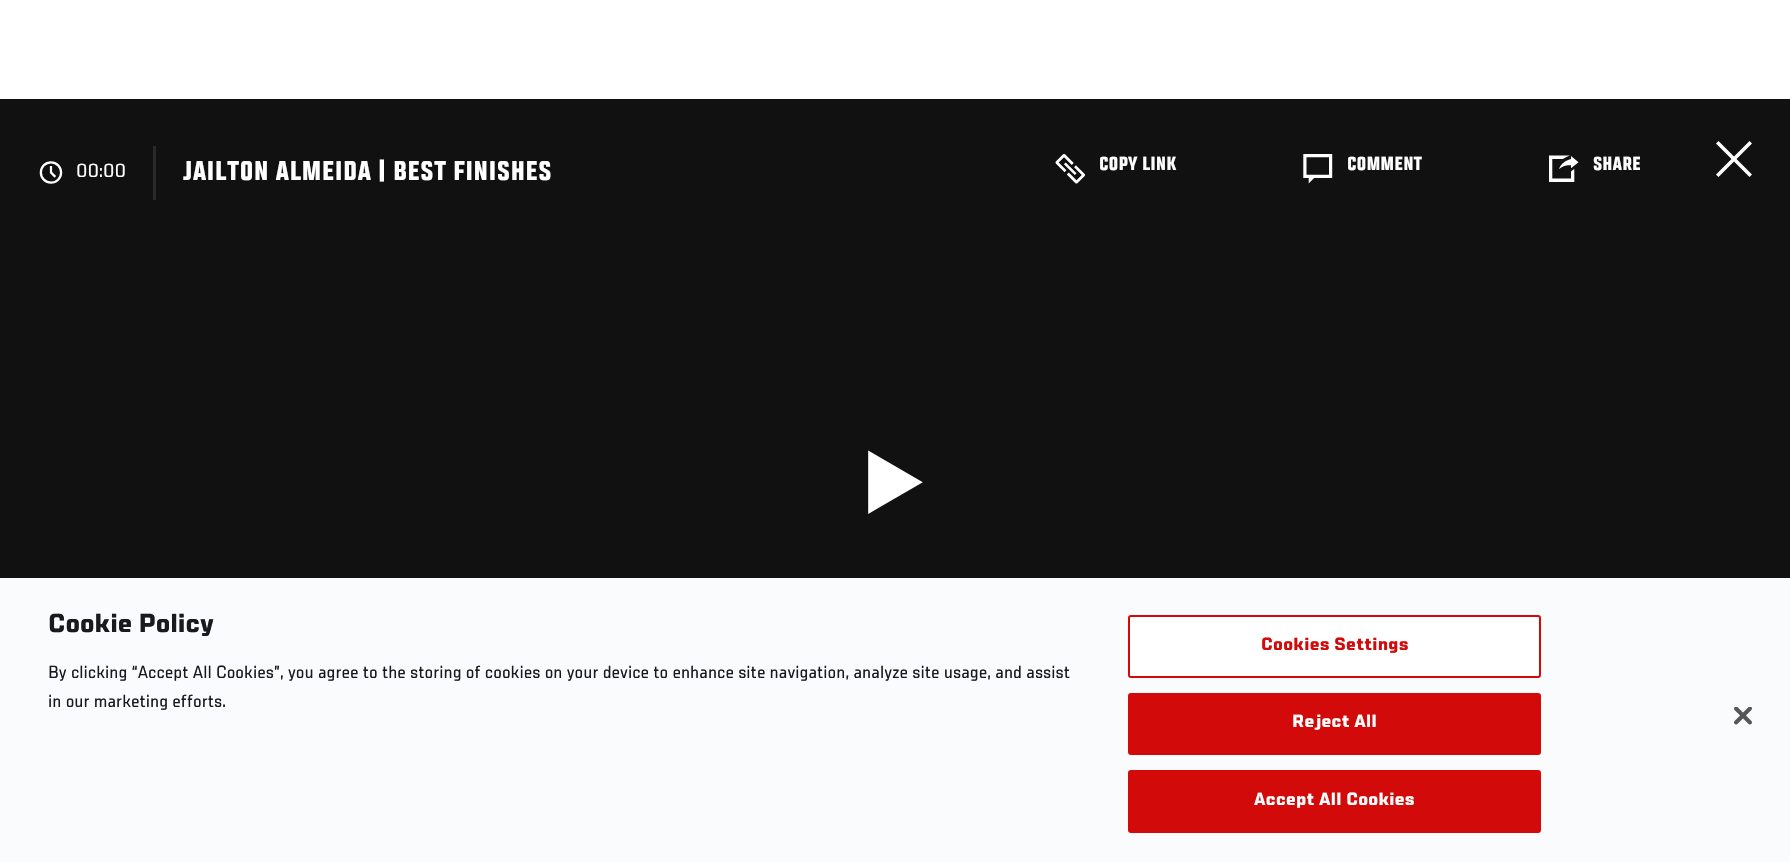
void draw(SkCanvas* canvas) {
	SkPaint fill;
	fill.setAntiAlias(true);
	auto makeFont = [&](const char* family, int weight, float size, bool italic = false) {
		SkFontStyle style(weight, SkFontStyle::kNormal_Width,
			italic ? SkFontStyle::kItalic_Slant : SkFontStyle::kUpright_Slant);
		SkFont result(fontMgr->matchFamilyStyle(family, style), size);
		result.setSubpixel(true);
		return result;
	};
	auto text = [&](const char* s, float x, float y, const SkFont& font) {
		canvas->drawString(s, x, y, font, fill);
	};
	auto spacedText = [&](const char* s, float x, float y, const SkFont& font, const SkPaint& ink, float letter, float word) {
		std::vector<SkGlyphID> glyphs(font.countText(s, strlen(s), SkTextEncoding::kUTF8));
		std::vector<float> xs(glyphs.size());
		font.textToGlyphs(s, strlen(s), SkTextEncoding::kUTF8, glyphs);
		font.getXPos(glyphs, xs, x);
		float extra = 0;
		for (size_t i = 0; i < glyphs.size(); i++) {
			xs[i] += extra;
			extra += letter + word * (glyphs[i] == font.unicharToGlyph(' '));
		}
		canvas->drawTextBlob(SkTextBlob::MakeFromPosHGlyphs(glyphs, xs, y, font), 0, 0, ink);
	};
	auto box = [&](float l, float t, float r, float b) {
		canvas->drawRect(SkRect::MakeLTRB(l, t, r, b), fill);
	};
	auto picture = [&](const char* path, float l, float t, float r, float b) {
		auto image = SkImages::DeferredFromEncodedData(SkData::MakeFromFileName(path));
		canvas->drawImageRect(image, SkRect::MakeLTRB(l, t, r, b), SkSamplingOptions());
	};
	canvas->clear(0xFFFFFFFF);
	fill.setColor(0xFF111111);
	box(0, 99, 1790, 578);
	picture("image0.png", 39, 161, 63, 184);
	fill.setColor(0xFF292929);
	box(153, 146, 156, 200);
	picture("image1.png", 1055, 154, 1085, 184);
	picture("image2.png", 1303, 154, 1333, 184);
	picture("image3.png", 1549, 155, 1579, 182);
	fill.setColor(0xFFFFFFFF);
	canvas->drawPath(SkPathBuilder().moveTo(1749.5f, 141).lineTo(1752, 143.5f).lineTo(1736.5f, 159).lineTo(1752, 174.5f).lineTo(1749.5f, 177).lineTo(1734, 161.5f).lineTo(1718.5f, 177).lineTo(1716, 174.5f).lineTo(1731.5f, 159).lineTo(1716, 143.5f).lineTo(1718.5f, 141).lineTo(1734, 156.5f).close().detach(), fill);
	picture("image4.png", 868, 450, 923, 514);
	fill.setColor(0xFFFAFBFD);
	box(0, 578, 1790, 862);
	fill.setColor(0xFFFFFFFF);
	canvas->drawRoundRect(SkRect::MakeLTRB(1129, 616, 1540, 677), 2, 2, fill);
	fill.setStyle(SkPaint::kStroke_Style);
	fill.setStrokeWidth(2);
	fill.setColor(0xFFD20A0A);
	canvas->drawRoundRect(SkRect::MakeLTRB(1129, 616, 1540, 677), 2, 2, fill);
	fill.setStyle(SkPaint::kFill_Style);
	canvas->drawRoundRect(SkRect::MakeLTRB(1129, 694, 1540, 754), 2, 2, fill);
	fill.setStyle(SkPaint::kStroke_Style);
	canvas->drawRoundRect(SkRect::MakeLTRB(1129, 694, 1540, 754), 2, 2, fill);
	fill.setStyle(SkPaint::kFill_Style);
	canvas->drawRoundRect(SkRect::MakeLTRB(1129, 771, 1540, 832), 2, 2, fill);
	fill.setStyle(SkPaint::kStroke_Style);
	canvas->drawRoundRect(SkRect::MakeLTRB(1129, 771, 1540, 832), 2, 2, fill);
	picture("image5.png", 1734, 707, 1752, 725);
	auto font1 = makeFont("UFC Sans", 400, 21);
	fill.setStyle(SkPaint::kFill_Style);
	fill.setColor(0xFFFFFFFF);
	text("00:00", 76, 177, font1);
	auto font2 = makeFont("UFC Sans", 700, 30);
	spacedText("JAILTON ALMEIDA | BEST FINISHES", 183, 180, font2, fill, 0.3f, 0);
	auto font3 = makeFont("UFC Sans", 700, 21);
	text("COPY LINK", 1099, 170, font3);
	text("COMMENT", 1347, 170, font3);
	text("SHARE", 1593, 170, font3);
	auto font4 = makeFont("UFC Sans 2", 700, 28.75f);
	fill.setColor(0xFF19191E);
	text("Cookie Policy", 48, 632, font4);
	auto font5 = makeFont("UFC Sans", 400, 19.5f);
	text("By clicking “Accept All Cookies”, you agree to the storing of cookies on your device to enhance site navigation, analyze site usage, and assist", 48, 678, font5);
	text("in our marketing efforts.", 48, 707, font5);
	auto font6 = makeFont("UFC Sans 2", 700, 19.5f);
	fill.setColor(0xFFD20A0A);
	spacedText("Cookies Settings", 1261, 650, font6, fill, 0.25f, 0);
	fill.setColor(0xFFFFFFFF);
	spacedText("Reject All", 1292, 727, font6, fill, 0.25f, 0);
	spacedText("Accept All Cookies", 1254, 805, font6, fill, 0.25f, 0);
}
